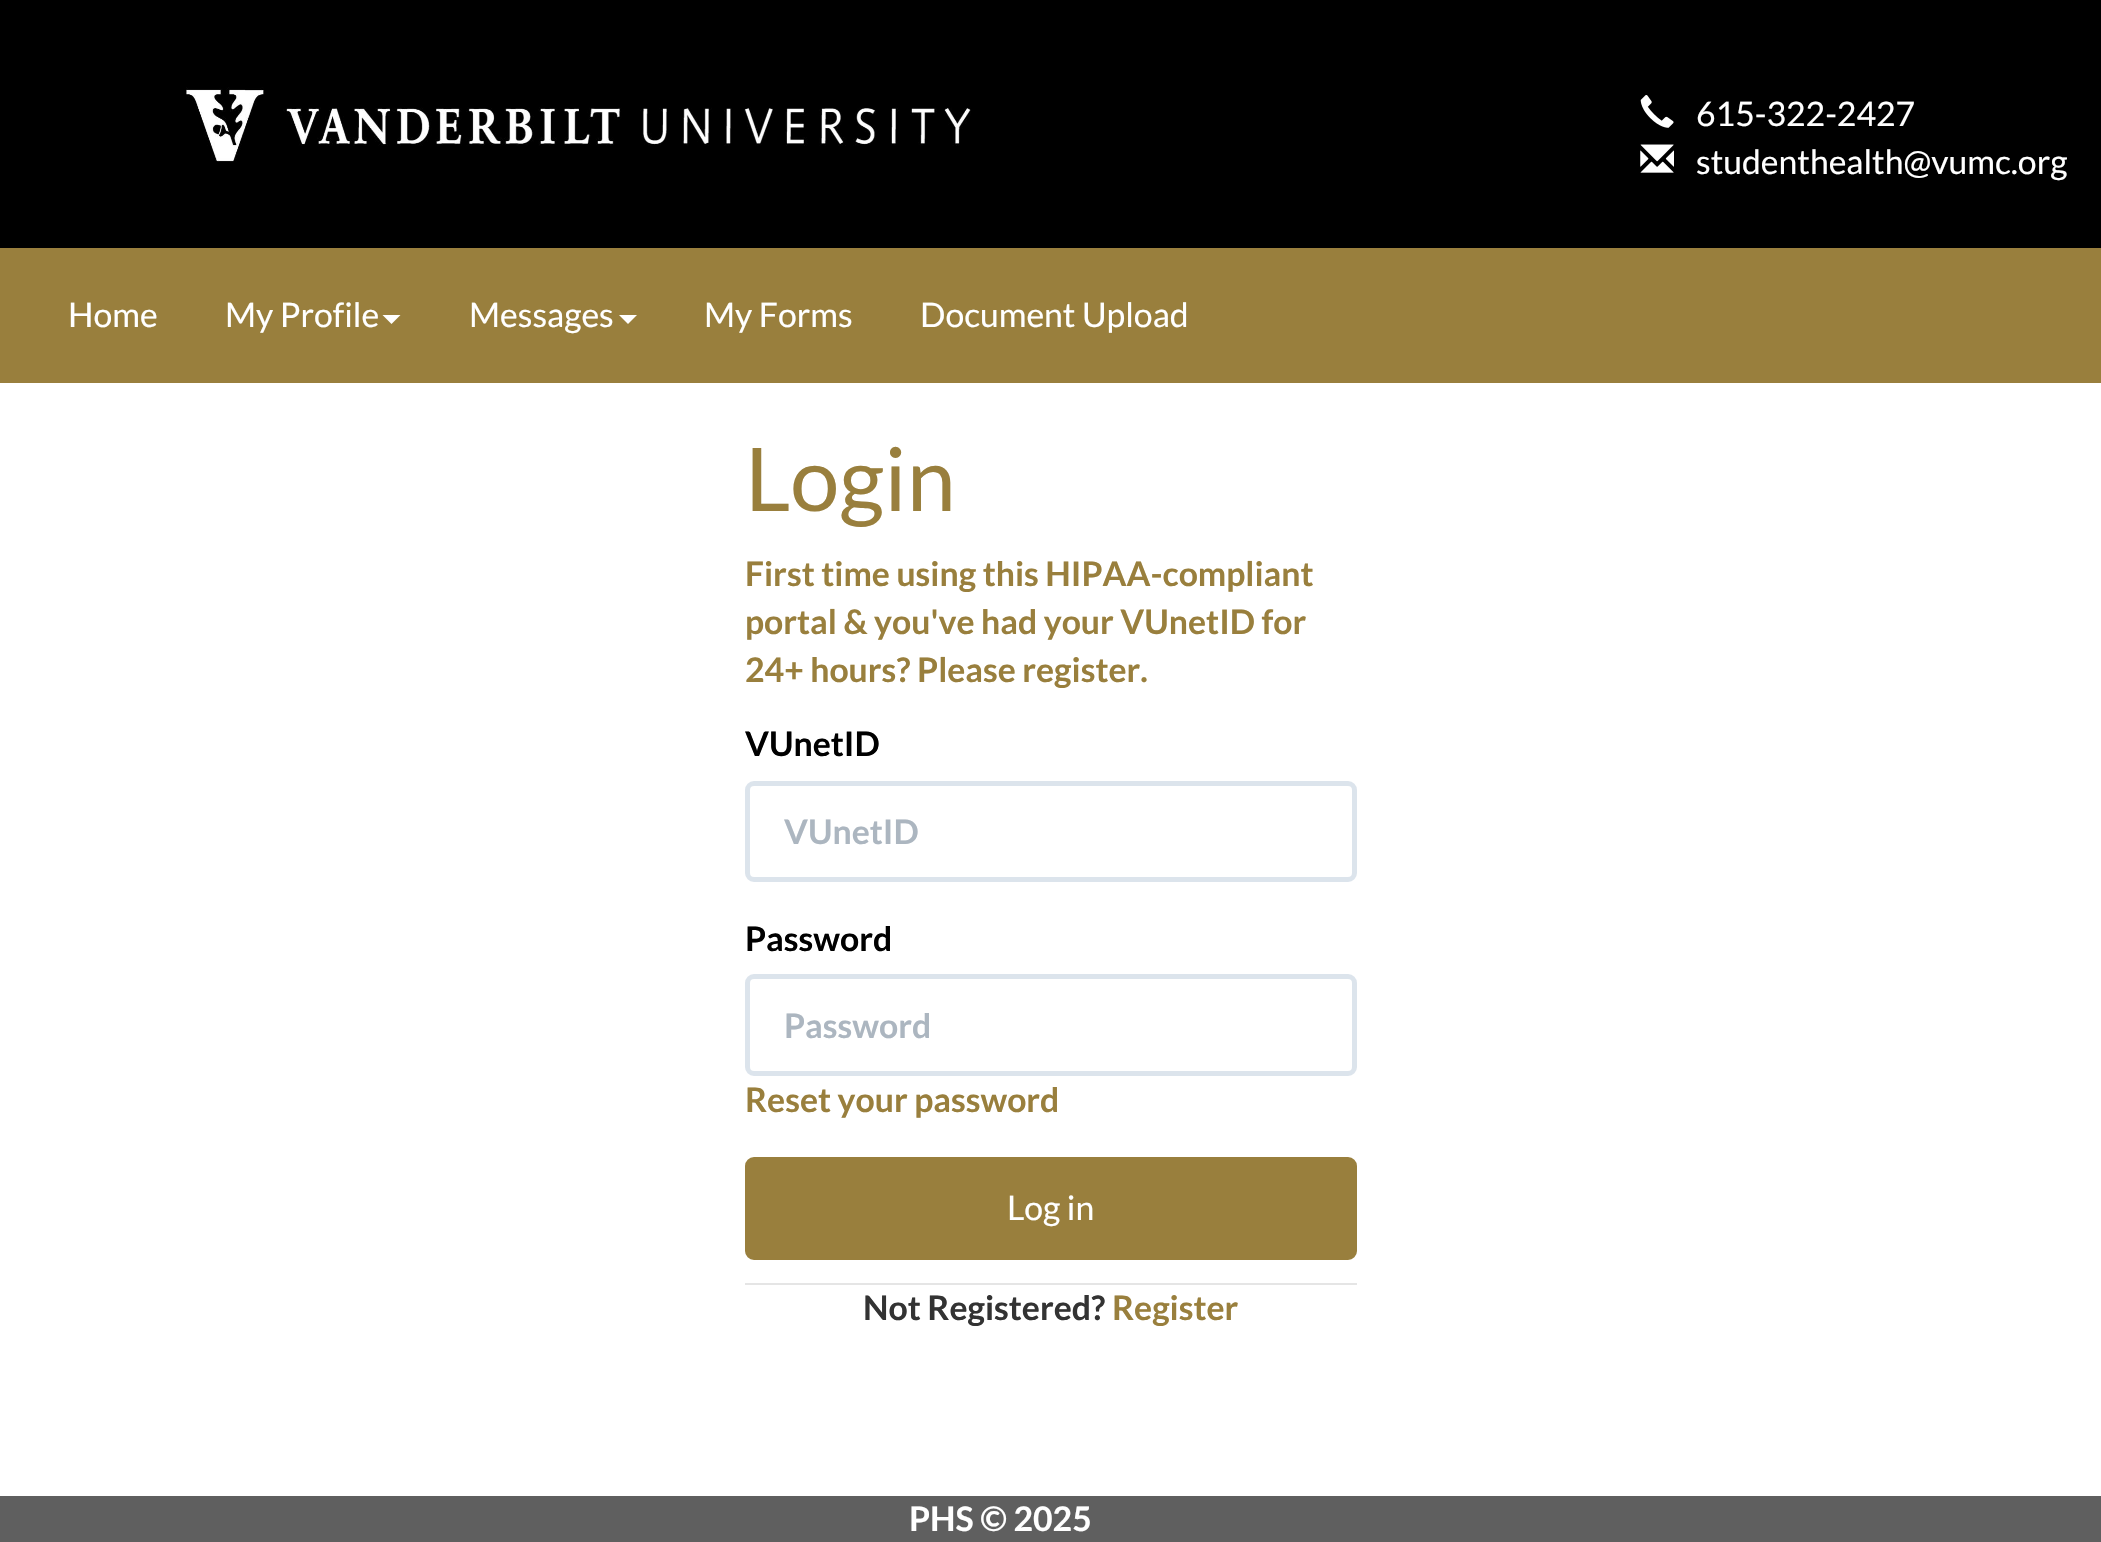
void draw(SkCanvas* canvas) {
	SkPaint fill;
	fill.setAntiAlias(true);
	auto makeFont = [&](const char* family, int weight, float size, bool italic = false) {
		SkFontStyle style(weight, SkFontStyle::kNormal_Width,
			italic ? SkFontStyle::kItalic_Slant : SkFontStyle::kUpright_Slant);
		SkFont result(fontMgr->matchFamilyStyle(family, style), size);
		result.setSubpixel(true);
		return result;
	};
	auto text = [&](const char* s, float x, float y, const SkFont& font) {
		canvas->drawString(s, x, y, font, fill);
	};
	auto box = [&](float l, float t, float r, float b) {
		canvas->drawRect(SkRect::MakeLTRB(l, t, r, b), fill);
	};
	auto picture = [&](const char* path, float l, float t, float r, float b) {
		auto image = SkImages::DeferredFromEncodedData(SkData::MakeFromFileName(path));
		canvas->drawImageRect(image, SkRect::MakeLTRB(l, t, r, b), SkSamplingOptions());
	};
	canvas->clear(0xFFFFFFFF);
	fill.setColor(0xFF000000);
	box(0, 0, 2101, 248);
	picture("image0.png", 186, 87, 971, 162);
	picture("image1.png", 1640, 95, 1674, 128);
	picture("image2.png", 1640, 144, 1674, 173);
	fill.setColor(0xFF997F3D);
	box(0, 248, 2101, 383);
	fill.setColor(0xFFFFFFFF);
	canvas->drawPath(SkPathBuilder().moveTo(382.5f, 315).lineTo(400.5f, 315).lineTo(391.5f, 324).close().detach(), fill);
	canvas->drawPath(SkPathBuilder().moveTo(619, 315).lineTo(637, 315).lineTo(628, 324).close().detach(), fill);
	fill.setStyle(SkPaint::kStroke_Style);
	fill.setStrokeWidth(5);
	fill.setColor(0xFFDCE4EC);
	canvas->drawRoundRect(SkRect::MakeLTRB(747.5f, 783.5f, 1354.5f, 879.5f), 6.5f, 6.5f, fill);
	canvas->drawRoundRect(SkRect::MakeLTRB(747.5f, 976.5f, 1354.5f, 1073.5f), 6.5f, 6.5f, fill);
	fill.setStyle(SkPaint::kFill_Style);
	fill.setColor(0xFF997F3D);
	canvas->drawRoundRect(SkRect::MakeLTRB(747.5f, 1159.5f, 1354.5f, 1257.5f), 6.5f, 6.5f, fill);
	fill.setStyle(SkPaint::kStroke_Style);
	canvas->drawRoundRect(SkRect::MakeLTRB(747.5f, 1159.5f, 1354.5f, 1257.5f), 6.5f, 6.5f, fill);
	fill.setStyle(SkPaint::kFill_Style);
	fill.setColor(0xFFE5E5E5);
	box(745, 1283, 1357, 1285);
	fill.setColor(0xFF5F5F5F);
	box(0, 1496, 2101, 1542);
	auto font1 = makeFont("Lato", 400, 33.75f);
	fill.setColor(0xFFFFFFFF);
	text("615-322-2427", 1696, 126, font1);
	text("studenthealth@vumc.org", 1696, 174, font1);
	text("Home", 68, 327, font1);
	text("My Profile", 225, 327, font1);
	text("Messages", 469, 327, font1);
	text("My Forms", 704, 327, font1);
	text("Document Upload", 920, 327, font1);
	auto font2 = makeFont("Lato", 400, 88);
	fill.setColor(0xFF997F3D);
	text("Login", 745, 511, font2);
	auto font3 = makeFont("Lato", 700, 33.75f);
	text("First time using this HIPAA-compliant", 745, 586, font3);
	text("portal & you've had your VUnetID for", 745, 634, font3);
	text("24+ hours? Please register.", 745, 682, font3);
	fill.setColor(0xFF000000);
	text("VUnetID", 745, 756, font3);
	fill.setColor(0xFFACB6C0);
	text("VUnetID", 784, 844, font3);
	fill.setColor(0xFF000000);
	text("Password", 745, 951, font3);
	fill.setColor(0xFFACB6C0);
	text("Password", 784, 1038, font3);
	fill.setColor(0xFF997F3D);
	text("Reset your password", 745, 1112, font3);
	fill.setColor(0xFFFFFFFF);
	text("Log in", 1007, 1220, font1);
	fill.setColor(0xFF333333);
	text("Not Registered?", 863, 1320, font3);
	fill.setColor(0xFF997F3D);
	text("Register", 1112, 1320, font3);
	fill.setColor(0xFFFFFFFF);
	text("PHS © 2025", 909, 1531, font3);
}
